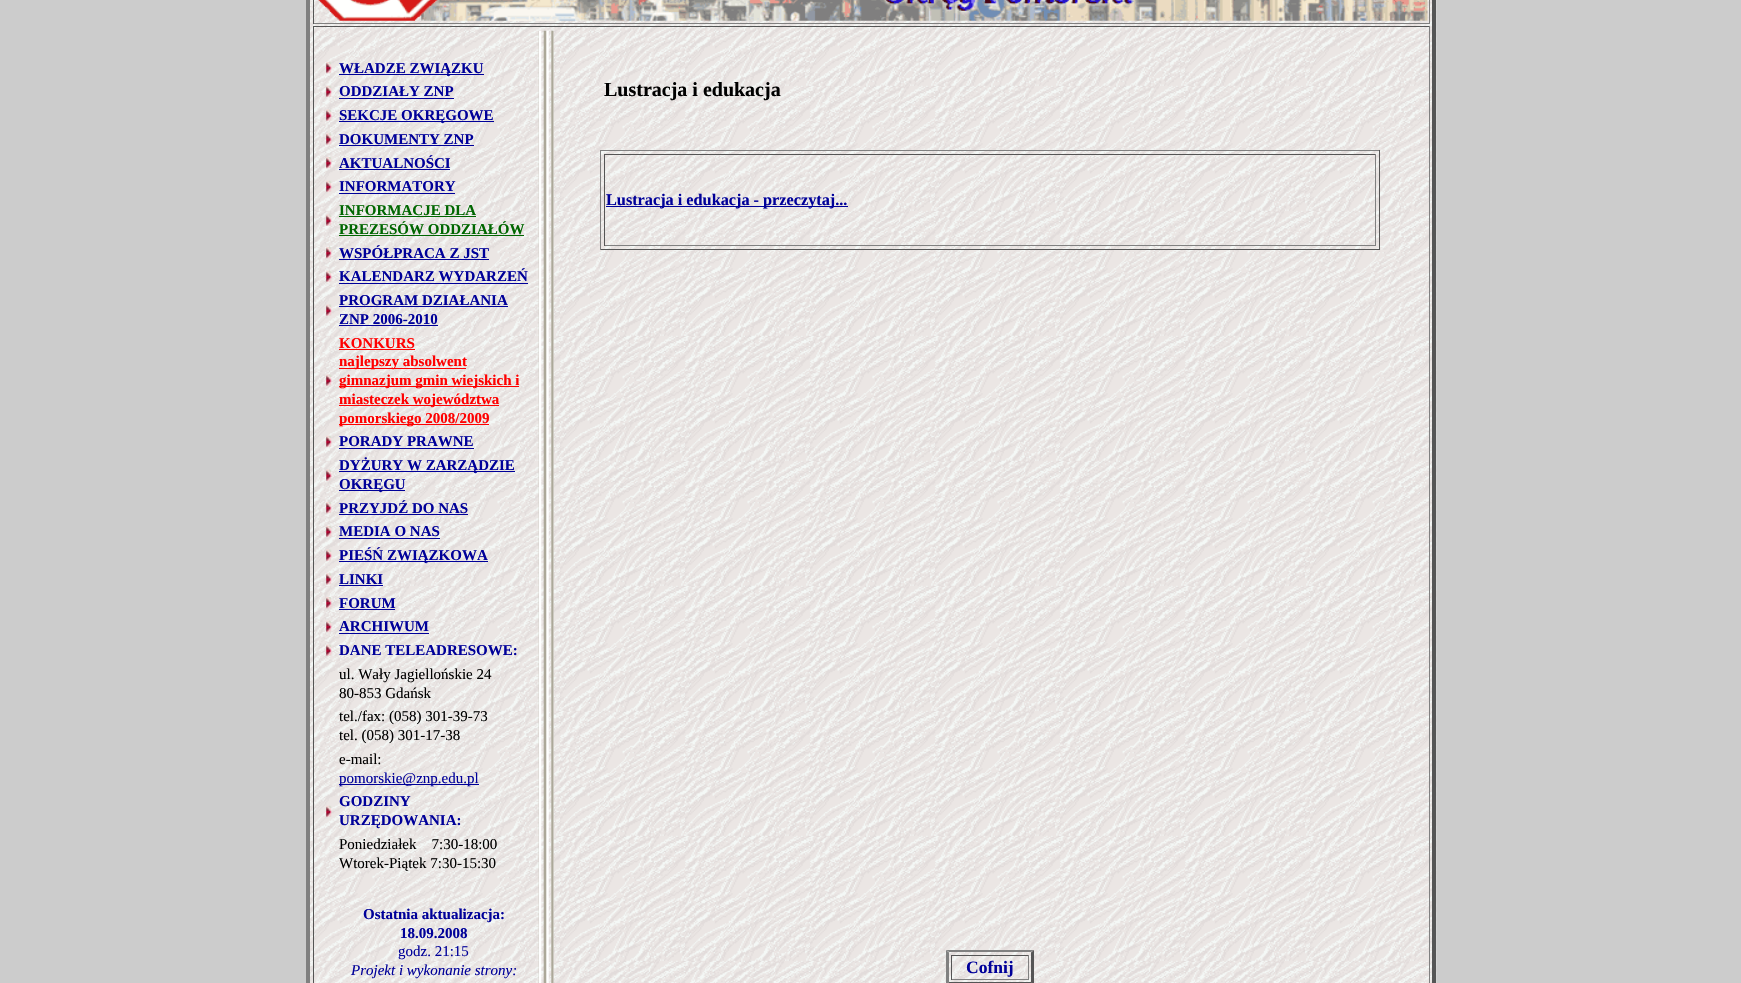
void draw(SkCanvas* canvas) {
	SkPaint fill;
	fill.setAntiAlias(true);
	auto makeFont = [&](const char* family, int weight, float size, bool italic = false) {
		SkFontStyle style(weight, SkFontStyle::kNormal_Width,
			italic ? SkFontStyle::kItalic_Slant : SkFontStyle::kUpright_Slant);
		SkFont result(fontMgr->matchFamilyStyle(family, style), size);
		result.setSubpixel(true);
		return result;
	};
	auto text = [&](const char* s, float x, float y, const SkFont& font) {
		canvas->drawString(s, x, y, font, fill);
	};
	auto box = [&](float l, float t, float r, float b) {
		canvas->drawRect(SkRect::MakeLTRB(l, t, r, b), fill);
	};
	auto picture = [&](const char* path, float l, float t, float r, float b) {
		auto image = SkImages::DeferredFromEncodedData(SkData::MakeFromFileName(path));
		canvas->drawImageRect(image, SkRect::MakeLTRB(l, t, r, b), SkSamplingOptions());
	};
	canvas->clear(0xFFCCCCCC);
	picture("image0.png", 310, 0, 1437, 983);
	fill.setColor(0xFF555555);
	canvas->drawPath(SkPathBuilder().moveTo(1436, -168).lineTo(1436, 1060).lineTo(1432, 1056).lineTo(1432, -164).close().detach(), fill);
	fill.setColor(0xFF808080);
	canvas->drawPath(SkPathBuilder().moveTo(306, 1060).lineTo(306, -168).lineTo(310, -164).lineTo(310, 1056).close().detach(), fill);
	box(1429, 0, 1430, 24);
	box(313, 23, 1430, 24);
	fill.setColor(0xFF555555);
	box(313, 0, 314, 24);
	picture("image1.png", 318, 0, 1428, 21);
	box(313, 26, 1430, 27);
	fill.setColor(0xFF808080);
	box(1429, 26, 1430, 983);
	fill.setColor(0xFF555555);
	box(313, 26, 314, 983);
	picture("image2.png", 326, 62, 332, 74);
	fill.setColor(0xFF000099);
	box(339, 74, 484, 75);
	picture("image3.png", 326, 85, 332, 97);
	box(339, 98, 454, 99);
	picture("image4.png", 326, 109, 332, 121);
	box(339, 121, 494, 122);
	picture("image5.png", 326, 133, 332, 145);
	box(339, 145, 474, 146);
	picture("image6.png", 326, 157, 332, 169);
	box(339, 169, 450, 170);
	picture("image7.png", 326, 180, 332, 192);
	box(339, 193, 455, 194);
	picture("image8.png", 326, 214, 332, 226);
	fill.setColor(0xFF006600);
	box(339, 216, 476, 217);
	box(339, 235, 524, 236);
	picture("image9.png", 326, 247, 332, 259);
	fill.setColor(0xFF000099);
	box(339, 259, 489, 260);
	picture("image10.png", 326, 270, 332, 282);
	box(339, 283, 528, 284);
	picture("image11.png", 326, 304, 332, 316);
	box(339, 306, 508, 307);
	box(339, 325, 438, 326);
	picture("image12.png", 326, 374, 332, 386);
	fill.setColor(0xFFFF0000);
	box(339, 349, 415, 350);
	box(339, 368, 466, 369);
	box(339, 386, 519, 387);
	box(339, 405, 499, 406);
	box(339, 424, 489, 425);
	picture("image13.png", 326, 435, 332, 447);
	fill.setColor(0xFF000099);
	box(339, 448, 474, 449);
	picture("image14.png", 326, 469, 332, 481);
	box(339, 471, 515, 472);
	box(339, 490, 405, 491);
	picture("image15.png", 326, 502, 332, 514);
	box(339, 514, 468, 515);
	picture("image16.png", 326, 525, 332, 537);
	box(339, 538, 440, 539);
	picture("image17.png", 326, 549, 332, 561);
	box(339, 561, 488, 562);
	picture("image18.png", 326, 573, 332, 585);
	box(339, 585, 383, 586);
	picture("image19.png", 326, 597, 332, 609);
	box(339, 609, 395, 610);
	picture("image20.png", 326, 620, 332, 632);
	box(339, 633, 429, 634);
	picture("image21.png", 326, 644, 332, 656);
	box(339, 784, 479, 785);
	picture("image7.png", 326, 805, 332, 817);
	picture("image22.png", 538, 30, 554, 983);
	fill.setColor(0xFF808080);
	box(600, 150, 1380, 151);
	fill.setColor(0xFF555555);
	box(1379, 150, 1380, 250);
	box(600, 249, 1380, 250);
	fill.setColor(0xFF808080);
	box(600, 150, 601, 250);
	fill.setColor(0xFF555555);
	box(604, 154, 1376, 155);
	fill.setColor(0xFF808080);
	box(1375, 154, 1376, 246);
	box(604, 245, 1376, 246);
	fill.setColor(0xFF555555);
	box(604, 154, 605, 246);
	fill.setColor(0xFF000099);
	box(606, 206, 848, 207);
	fill.setColor(0xFF808080);
	canvas->drawPath(SkPathBuilder().moveTo(946, 950).lineTo(1034, 950).lineTo(1031, 952).lineTo(949, 952).close().detach(), fill);
	fill.setColor(0xFF555555);
	canvas->drawPath(SkPathBuilder().moveTo(1034, 950).lineTo(1034, 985).lineTo(1031, 982.5f).lineTo(1031, 952.5f).close().detach(), fill);
	canvas->drawPath(SkPathBuilder().moveTo(1034, 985).lineTo(946, 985).lineTo(949, 982).lineTo(1031, 982).close().detach(), fill);
	fill.setColor(0xFF808080);
	canvas->drawPath(SkPathBuilder().moveTo(946, 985).lineTo(946, 950).lineTo(949, 952.5f).lineTo(949, 982.5f).close().detach(), fill);
	fill.setColor(0xFF555555);
	box(951, 955, 1029, 956);
	fill.setColor(0xFF808080);
	box(1028, 955, 1029, 980);
	box(951, 979, 1029, 980);
	fill.setColor(0xFF555555);
	box(951, 955, 952, 980);
	auto font1 = makeFont("Liberation Serif", 700, 15);
	fill.setColor(0xFF000099);
	text("WŁADZE ZWIĄZKU", 339, 73, font1);
	text("ODDZIAŁY ZNP", 339, 96, font1);
	text("SEKCJE OKRĘGOWE", 339, 120, font1);
	text("DOKUMENTY ZNP", 339, 144, font1);
	text("AKTUALNOŚCI", 339, 168, font1);
	text("INFORMATORY", 339, 191, font1);
	fill.setColor(0xFF006600);
	text("INFORMACJE DLA", 339, 215, font1);
	text("PREZESÓW ODDZIAŁÓW", 339, 234, font1);
	fill.setColor(0xFF000099);
	text("WSPÓŁPRACA Z JST", 339, 258, font1);
	text("KALENDARZ WYDARZEŃ", 339, 281, font1);
	text("PROGRAM DZIAŁANIA", 339, 305, font1);
	text("ZNP 2006-2010", 339, 324, font1);
	fill.setColor(0xFFFF0000);
	text("KONKURS", 339, 348, font1);
	text("najlepszy absolwent", 339, 366, font1);
	text("gimnazjum gmin wiejskich i", 339, 385, font1);
	text("miasteczek województwa", 339, 404, font1);
	text("pomorskiego 2008/2009", 339, 423, font1);
	fill.setColor(0xFF000099);
	text("PORADY PRAWNE", 339, 446, font1);
	text("DYŻURY W ZARZĄDZIE", 339, 470, font1);
	text("OKRĘGU", 339, 489, font1);
	text("PRZYJDŹ DO NAS", 339, 513, font1);
	text("MEDIA O NAS", 339, 536, font1);
	text("PIEŚŃ ZWIĄZKOWA", 339, 560, font1);
	text("LINKI", 339, 584, font1);
	text("FORUM", 339, 608, font1);
	text("ARCHIWUM", 339, 631, font1);
	text("DANE TELEADRESOWE:", 339, 655, font1);
	auto font2 = makeFont("Liberation Serif", 400, 15);
	fill.setColor(0xFF000000);
	text("ul. Wały Jagiellońskie 24", 339, 679, font2);
	text("80-853 Gdańsk", 339, 698, font2);
	text("tel./fax: (058) 301-39-73", 339, 721, font2);
	text("tel. (058) 301-17-38", 339, 740, font2);
	text("e-mail:", 339, 764, font2);
	fill.setColor(0xFF000099);
	text("pomorskie@znp.edu.pl", 339, 783, font2);
	text("GODZINY", 339, 806, font1);
	text("URZĘDOWANIA:", 339, 825, font1);
	fill.setColor(0xFF000000);
	text("Poniedziałek    7:30-18:00", 339, 849, font2);
	text("Wtorek-Piątek 7:30-15:30", 339, 868, font2);
	fill.setColor(0xFF000099);
	text("Ostatnia aktualizacja:", 363, 919, font1);
	text("18.09.2008", 400, 938, font1);
	text("godz. 21:15", 398, 956, font2);
	auto font3 = makeFont("Liberation Serif", 400, 15, true);
	text("Projekt i wykonanie strony:", 351, 975, font3);
	auto font4 = makeFont("Liberation Serif", 700, 20);
	fill.setColor(0xFF000000);
	text("Lustracja i edukacja", 604, 96, font4);
	auto font5 = makeFont("Liberation Serif", 700, 16.25f);
	fill.setColor(0xFF000099);
	text("Lustracja i edukacja - przeczytaj...", 606, 205, font5);
	auto font6 = makeFont("Liberation Serif", 700, 17.5f);
	text("Cofnij", 966, 973, font6);
}
